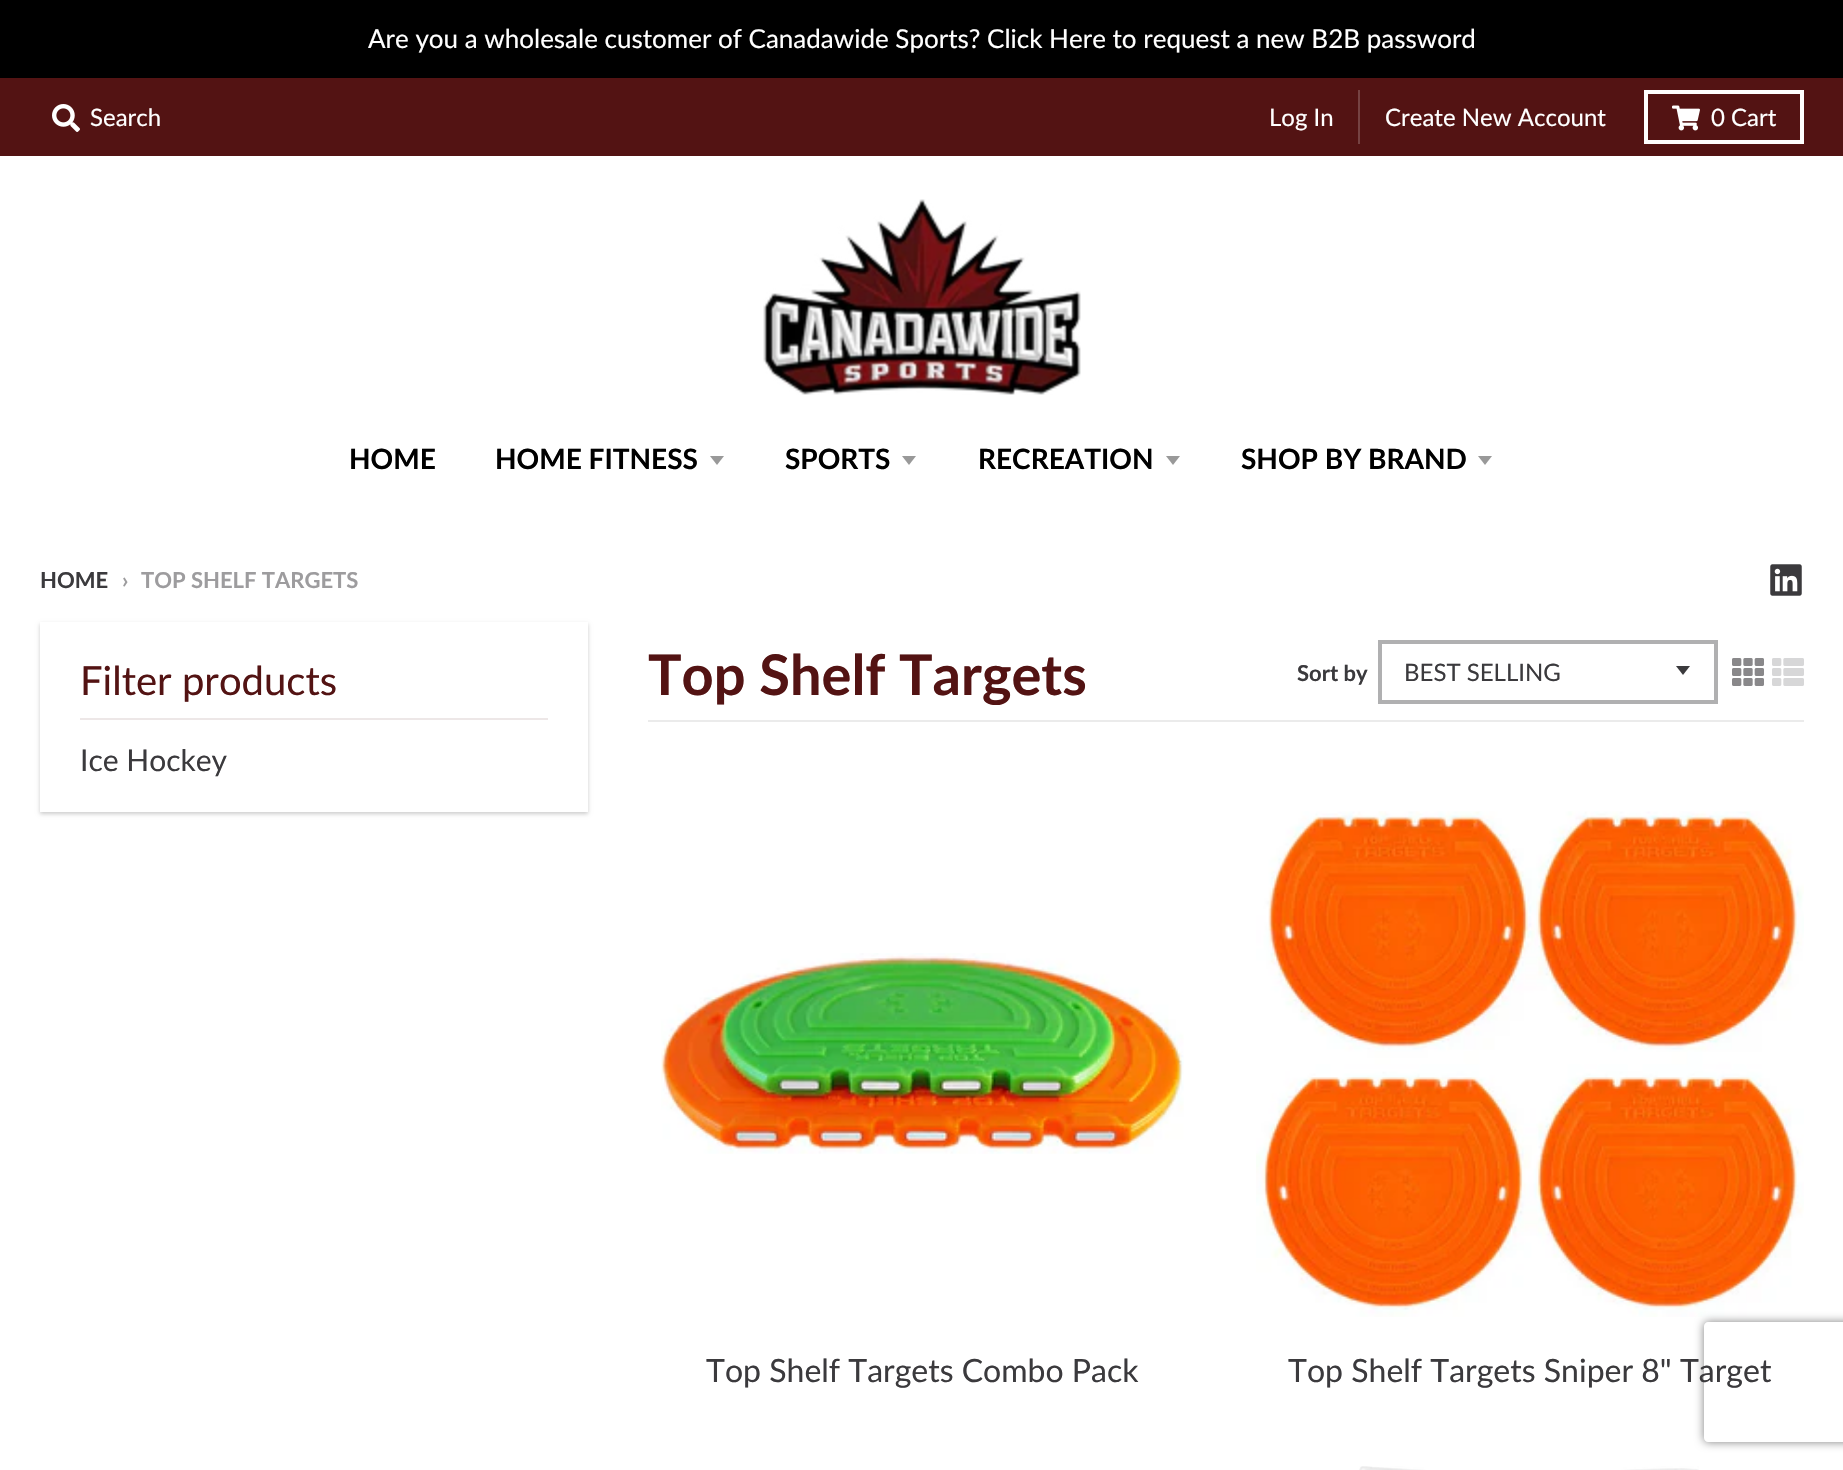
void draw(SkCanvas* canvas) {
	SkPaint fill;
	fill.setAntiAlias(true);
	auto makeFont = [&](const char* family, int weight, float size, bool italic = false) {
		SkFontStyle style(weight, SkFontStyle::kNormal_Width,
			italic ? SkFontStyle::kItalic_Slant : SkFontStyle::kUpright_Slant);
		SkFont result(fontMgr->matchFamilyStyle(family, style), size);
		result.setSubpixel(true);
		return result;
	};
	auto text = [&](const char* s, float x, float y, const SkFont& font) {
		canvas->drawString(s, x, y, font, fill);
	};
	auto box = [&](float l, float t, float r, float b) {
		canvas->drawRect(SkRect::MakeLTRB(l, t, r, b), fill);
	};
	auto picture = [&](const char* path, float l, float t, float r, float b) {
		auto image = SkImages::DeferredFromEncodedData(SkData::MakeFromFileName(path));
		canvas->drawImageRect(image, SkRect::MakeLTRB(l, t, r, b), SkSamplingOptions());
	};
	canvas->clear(0xFFFFFFFF);
	fill.setColor(0xFF000000);
	box(0, 0, 1843, 78);
	fill.setColor(0xFF531313);
	box(0, 78, 1843, 156);
	picture("image0.png", 52, 104, 80, 132);
	fill.setColor(0xFF754242);
	box(1358, 90, 1360, 144);
	fill.setStyle(SkPaint::kStroke_Style);
	fill.setStrokeWidth(4);
	fill.setColor(0xFFFFFFFF);
	canvas->drawRect(SkRect::MakeLTRB(1646, 92, 1802, 142), fill);
	picture("image1.png", 1672, 105, 1700, 131);
	picture("image2.png", 763, 199, 1081, 395);
	fill.setStyle(SkPaint::kFill_Style);
	fill.setColor(0xFF999999);
	canvas->drawPath(SkPathBuilder().moveTo(710, 456).lineTo(717, 465).lineTo(724, 456).close().detach(), fill);
	canvas->drawPath(SkPathBuilder().moveTo(902, 456).lineTo(909, 465).lineTo(916, 456).close().detach(), fill);
	canvas->drawPath(SkPathBuilder().moveTo(1166, 456).lineTo(1173, 465).lineTo(1180, 456).close().detach(), fill);
	canvas->drawPath(SkPathBuilder().moveTo(1478, 456).lineTo(1485, 465).lineTo(1492, 456).close().detach(), fill);
	picture("image3.png", 1770, 564, 1802, 596);
	canvas->save();
	canvas->clipPath(SkPathBuilder(SkPathFillType::kEvenOdd).moveTo(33, 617).lineTo(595, 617).lineTo(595, 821).lineTo(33, 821).close().moveTo(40, 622).lineTo(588, 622).lineTo(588, 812).lineTo(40, 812).close().detach(), true);
	fill.setColor(0x33000000);
	fill.setMaskFilter(SkMaskFilter::MakeBlur(kNormal_SkBlurStyle, 2));
	canvas->drawRect(SkRect::MakeLTRB(40, 624, 588, 814), fill);
	fill.setMaskFilter(nullptr);
	canvas->restore();
	fill.setColor(0xFFEDE7E7);
	box(80, 718, 548, 720);
	fill.setColor(0xFFEBEBEB);
	box(648, 720, 1804, 722);
	fill.setColor(0xFF3B3A3D);
	canvas->drawPath(SkPathBuilder().moveTo(1676, 666).lineTo(1683, 675).lineTo(1690, 666).close().detach(), fill);
	fill.setStyle(SkPaint::kStroke_Style);
	fill.setColor(0xFFB0B0B1);
	canvas->drawRect(SkRect::MakeLTRB(1380, 642, 1716, 702), fill);
	picture("image4.png", 1732, 658, 1764, 686);
	picture("image5.png", 1772, 658, 1804, 686);
	picture("image6.png", 661, 953, 1184, 1154);
	picture("image7.png", 1256, 811, 1804, 1317);
	picture("image8.png", 1359, 1466, 1699, 1470);
	canvas->save();
	canvas->clipPath(SkPathBuilder(SkPathFillType::kEvenOdd).moveTo(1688, 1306).lineTo(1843, 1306).lineTo(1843, 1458).lineTo(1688, 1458).close().moveTo(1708, 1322).lineTo(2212, 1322).cubicTo(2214, 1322, 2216, 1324, 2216, 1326).lineTo(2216, 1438).cubicTo(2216, 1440, 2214, 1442, 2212, 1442).lineTo(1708, 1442).cubicTo(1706, 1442, 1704, 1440, 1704, 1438).lineTo(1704, 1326).cubicTo(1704, 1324, 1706, 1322, 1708, 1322).close().detach(), true);
	fill.setStyle(SkPaint::kFill_Style);
	fill.setColor(0xFF808080);
	fill.setMaskFilter(SkMaskFilter::MakeBlur(kNormal_SkBlurStyle, 5));
	canvas->drawRoundRect(SkRect::MakeLTRB(1704, 1322, 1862, 1442), 4, 4, fill);
	fill.setMaskFilter(nullptr);
	canvas->restore();
	auto font1 = makeFont("Lato", 400, 26);
	fill.setColor(0xFFFFFFFF);
	text("Are you a wholesale customer of Canadawide Sports? Click Here to request a new B2B password", 368, 48, font1);
	auto font2 = makeFont("Lato", 400, 24);
	text("Search", 90, 126, font2);
	text("Log In", 1269, 126, font2);
	text("Create New Account", 1385, 126, font2);
	text("0 Cart", 1711, 126, font2);
	auto font3 = makeFont("Lato", 700, 28);
	fill.setColor(0xFF000000);
	text("HOME", 349, 469, font3);
	text("HOME FITNESS", 495, 469, font3);
	text("SPORTS", 785, 469, font3);
	text("RECREATION", 978, 469, font3);
	text("SHOP BY BRAND", 1241, 469, font3);
	auto font4 = makeFont("Lato", 700, 22);
	fill.setColor(0xFF3B3A3D);
	text("HOME", 40, 588, font4);
	fill.setColor(0xFF9D9C9E);
	text("›", 122, 588, font4);
	text("TOP SHELF TARGETS", 141, 588, font4);
	auto font5 = makeFont("Lato", 400, 40);
	fill.setColor(0xFF531313);
	text("Filter products", 80, 695, font5);
	auto font6 = makeFont("Lato", 400, 30);
	fill.setColor(0xFF3B3A3D);
	text("Ice Hockey", 80, 771, font6);
	auto font7 = makeFont("Lato", 700, 56);
	fill.setColor(0xFF531313);
	text("Top Shelf Targets", 648, 695, font7);
	fill.setColor(0xFF3B3A3D);
	text("Sort by", 1297, 681, font4);
	text("BEST SELLING", 1404, 681, font2);
	auto font8 = makeFont("Lato", 400, 32);
	text("Top Shelf Targets Combo Pack", 706, 1382, font8);
	text("Top Shelf Targets Sniper 8\" Target", 1288, 1382, font8);
}
